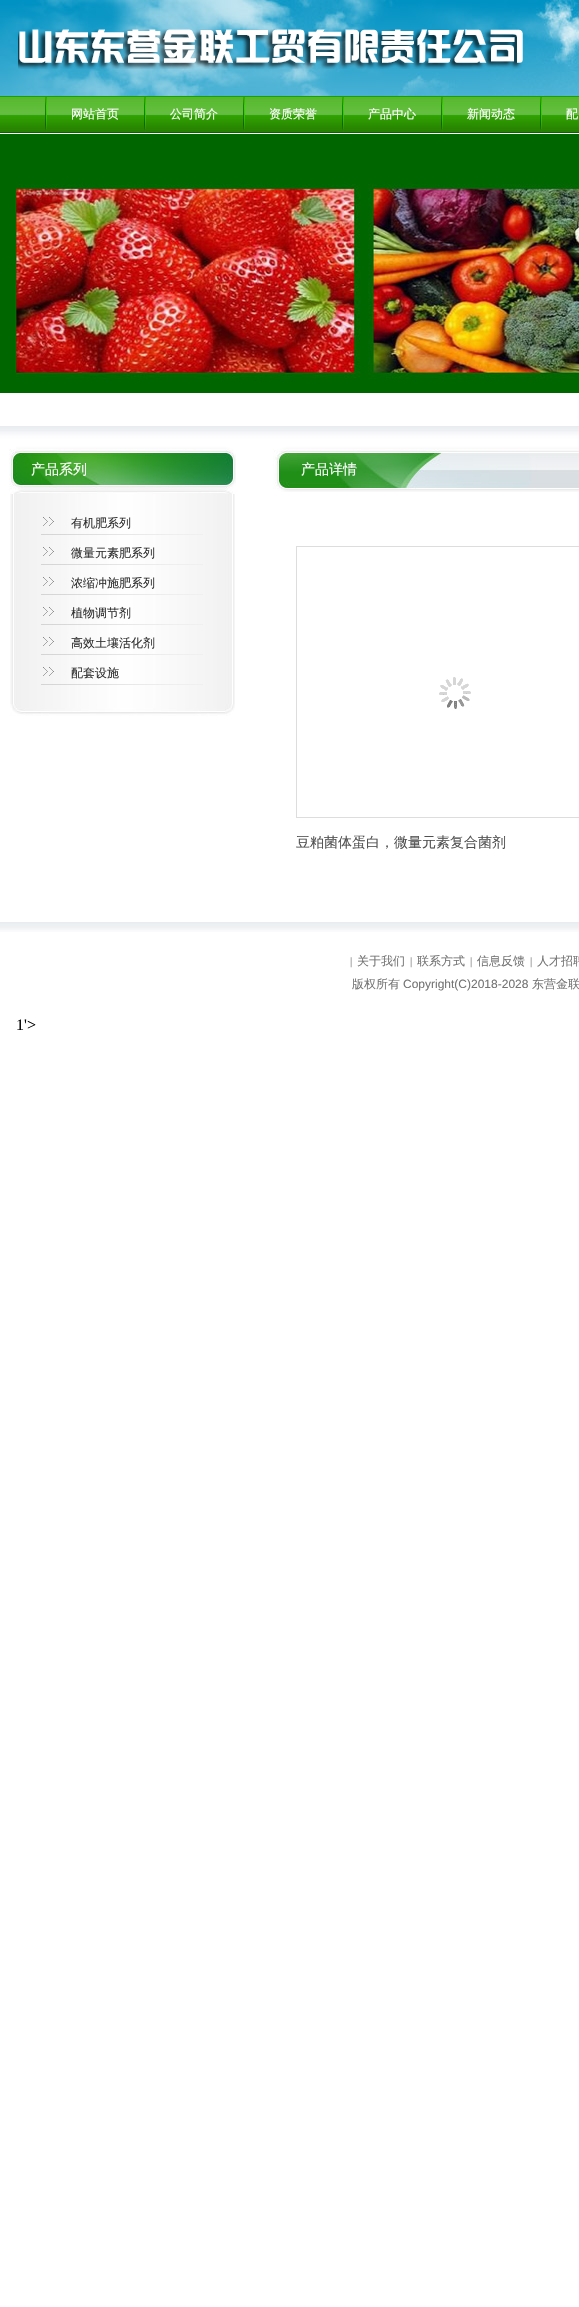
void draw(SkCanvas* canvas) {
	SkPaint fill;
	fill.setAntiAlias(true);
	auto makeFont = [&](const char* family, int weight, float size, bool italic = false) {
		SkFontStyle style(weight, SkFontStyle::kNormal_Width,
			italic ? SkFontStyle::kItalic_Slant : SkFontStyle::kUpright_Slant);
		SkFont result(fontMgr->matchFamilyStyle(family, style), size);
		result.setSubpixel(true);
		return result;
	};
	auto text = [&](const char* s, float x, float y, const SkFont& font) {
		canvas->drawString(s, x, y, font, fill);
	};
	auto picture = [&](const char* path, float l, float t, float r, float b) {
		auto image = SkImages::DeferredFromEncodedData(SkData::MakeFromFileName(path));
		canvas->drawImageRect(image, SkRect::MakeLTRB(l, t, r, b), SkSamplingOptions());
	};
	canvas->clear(0xFFFFFFFF);
	picture("image0.png", 0, 0, 579, 133);
	picture("image1.png", 18, 29, 523, 69);
	picture("image2.png", 45, 97, 47, 132);
	picture("image2.png", 144, 97, 146, 132);
	picture("image2.png", 243, 97, 245, 132);
	picture("image2.png", 342, 97, 344, 132);
	picture("image2.png", 441, 97, 443, 132);
	picture("image2.png", 540, 97, 542, 132);
	picture("image3.png", 0, 134, 579, 393);
	picture("image4.png", 0, 426, 579, 449);
	picture("image5.png", 10, 494, 235, 704);
	picture("image6.png", 9, 449, 236, 494);
	picture("image7.png", 41, 517, 203, 535);
	picture("image7.png", 41, 547, 203, 565);
	picture("image7.png", 41, 577, 203, 595);
	picture("image7.png", 41, 607, 203, 625);
	picture("image7.png", 41, 637, 203, 655);
	picture("image7.png", 41, 667, 203, 685);
	picture("image8.png", 10, 704, 235, 716);
	picture("image9.png", 273, 449, 579, 492);
	fill.setStyle(SkPaint::kStroke_Style);
	fill.setStrokeWidth(1);
	fill.setColor(0xFFDDDDDD);
	canvas->drawRect(SkRect::MakeLTRB(296.5f, 546.5f, 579.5f, 817.5f), fill);
	picture("image10.png", 439, 677, 471, 709);
	picture("image11.png", 0, 922, 579, 932);
	auto font1 = makeFont("WenQuanYi Zen Hei", 500, 12);
	fill.setStyle(SkPaint::kFill_Style);
	fill.setColor(0xFFFFFFFF);
	text("网站首页", 71, 118, font1);
	text("公司简介", 170, 118, font1);
	text("资质荣誉", 269, 118, font1);
	text("产品中心", 368, 118, font1);
	text("新闻动态", 467, 118, font1);
	text("配", 566, 118, font1);
	auto font2 = makeFont("WenQuanYi Zen Hei", 500, 14);
	text("产品系列", 31, 474, font2);
	fill.setColor(0xFF303030);
	text("有机肥系列", 71, 527, font1);
	text("微量元素肥系列", 71, 557, font1);
	text("浓缩冲施肥系列", 71, 587, font1);
	text("植物调节剂", 71, 617, font1);
	text("高效土壤活化剂", 71, 647, font1);
	text("配套设施", 71, 677, font1);
	fill.setColor(0xFFFFFFFF);
	text("产品详情", 301, 474, font2);
	fill.setColor(0xFF505050);
	text("豆粕菌体蛋白，微量元素复合菌剂", 296, 847, font2);
	auto font3 = makeFont("Liberation Serif", 400, 11);
	fill.setColor(0xFF747474);
	text("|", 350, 965, font3);
	text("关于我们", 357, 965, font1);
	text("|", 410, 965, font3);
	text("联系方式", 417, 965, font1);
	text("|", 470, 965, font3);
	text("信息反馈", 477, 965, font1);
	text("|", 530, 965, font3);
	text("人才招聘", 537, 965, font1);
	text("版权所有", 352, 988, font1);
	auto font4 = makeFont("Liberation Sans", 400, 12);
	text("Copyright(C)2018-2028", 403, 988, font4);
	text("东营金联", 532, 988, font1);
	auto font5 = makeFont("Liberation Serif", 400, 16);
	fill.setColor(0xFF000000);
	text("1'>", 16, 1030, font5);
}
